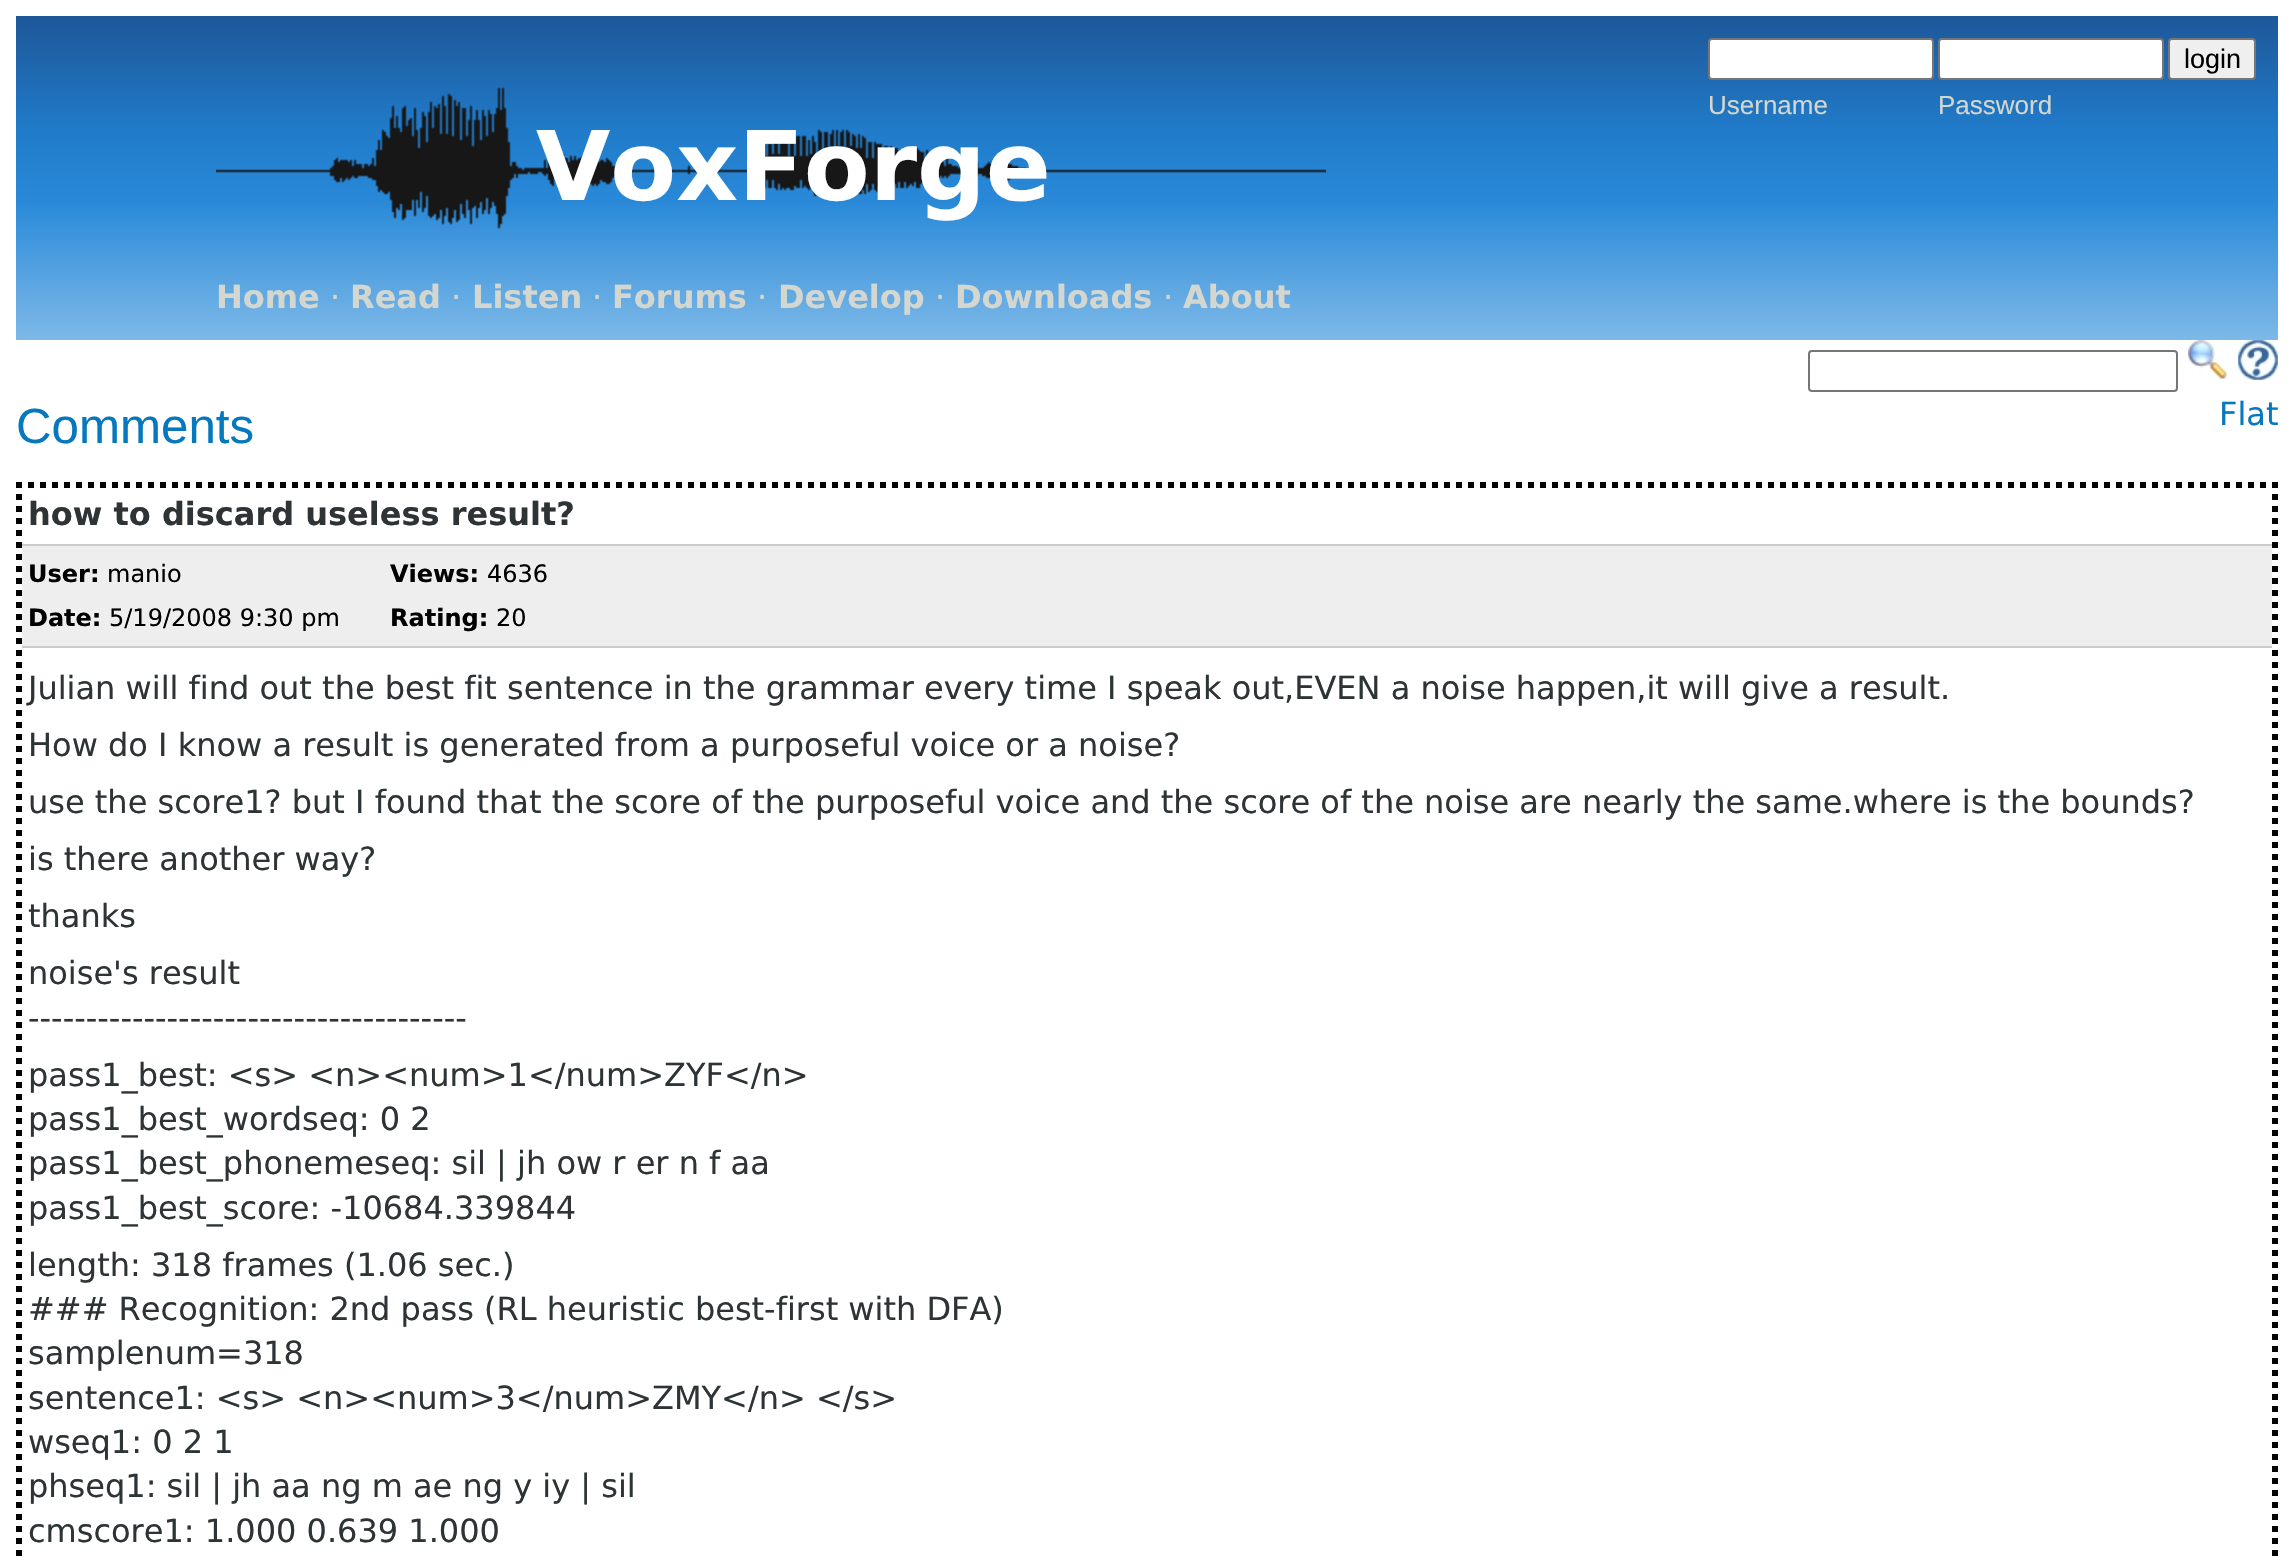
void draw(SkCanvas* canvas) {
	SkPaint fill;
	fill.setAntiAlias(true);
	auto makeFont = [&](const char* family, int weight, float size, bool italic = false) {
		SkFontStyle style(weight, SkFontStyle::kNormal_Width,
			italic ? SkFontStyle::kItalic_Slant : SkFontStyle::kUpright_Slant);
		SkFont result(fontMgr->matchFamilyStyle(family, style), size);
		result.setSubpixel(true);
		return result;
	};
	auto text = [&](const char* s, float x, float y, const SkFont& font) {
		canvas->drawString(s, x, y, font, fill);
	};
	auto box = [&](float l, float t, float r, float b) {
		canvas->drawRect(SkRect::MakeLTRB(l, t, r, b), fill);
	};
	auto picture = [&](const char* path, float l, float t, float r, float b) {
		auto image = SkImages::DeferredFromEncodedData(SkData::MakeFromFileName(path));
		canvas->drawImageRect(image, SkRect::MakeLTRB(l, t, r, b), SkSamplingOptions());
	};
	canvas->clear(0xFFFFFFFF);
	{
		const SkColor colors[] = {0xFF1E5799, 0xFF207CCA, 0xFF2989D8, 0xFF7DB9E8};
		const float stops[] = {0, 0.36f, 0.57f, 1};
		const SkPoint ends[] = {{1147, 16}, {1147, 340}};
		fill.setShader(SkGradientShader::MakeLinear(ends, colors, stops, 4, SkTileMode::kClamp));
		fill.setAlpha(255);
	}
	box(16, 16, 2278, 340);
	fill.setShader(nullptr);
	fill.setColor(0xFFFFFFFF);
	canvas->drawRoundRect(SkRect::MakeLTRB(1709, 39, 1933, 79), 3, 3, fill);
	fill.setStyle(SkPaint::kStroke_Style);
	fill.setStrokeWidth(2);
	fill.setColor(0xFF767676);
	canvas->drawRoundRect(SkRect::MakeLTRB(1709, 39, 1933, 79), 3, 3, fill);
	fill.setStyle(SkPaint::kFill_Style);
	fill.setColor(0xFFFFFFFF);
	canvas->drawRoundRect(SkRect::MakeLTRB(1939, 39, 2163, 79), 3, 3, fill);
	fill.setStyle(SkPaint::kStroke_Style);
	fill.setColor(0xFF767676);
	canvas->drawRoundRect(SkRect::MakeLTRB(1939, 39, 2163, 79), 3, 3, fill);
	fill.setStyle(SkPaint::kFill_Style);
	fill.setColor(0xFFEFEFEF);
	canvas->drawRoundRect(SkRect::MakeLTRB(2169, 39, 2255, 79), 3, 3, fill);
	fill.setStyle(SkPaint::kStroke_Style);
	fill.setColor(0xFF767676);
	canvas->drawRoundRect(SkRect::MakeLTRB(2169, 39, 2255, 79), 3, 3, fill);
	picture("image0.png", 216, 87, 1326, 229);
	canvas->drawRoundRect(SkRect::MakeLTRB(1809, 351, 2177, 391), 3, 3, fill);
	picture("image1.png", 2188, 340, 2228, 380);
	picture("image2.png", 2238, 340, 2278, 380);
	fill.setStrokeWidth(6);
	fill.setColor(0xFF000000);
	fill.setPathEffect(SkDashPathEffect::Make({{6, 6}}, 0));
	canvas->drawPath(SkPathBuilder().moveTo(16, 485).lineTo(2278, 485).detach(), fill);
	fill.setPathEffect(nullptr);
	fill.setPathEffect(SkDashPathEffect::Make({{6, 6}}, 0));
	canvas->drawPath(SkPathBuilder().moveTo(2275, 482).lineTo(2275, 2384).detach(), fill);
	fill.setPathEffect(nullptr);
	fill.setPathEffect(SkDashPathEffect::Make({{6, 6}}, 0));
	canvas->drawPath(SkPathBuilder().moveTo(19, 482).lineTo(19, 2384).detach(), fill);
	fill.setPathEffect(nullptr);
	fill.setStyle(SkPaint::kFill_Style);
	fill.setColor(0xFFCCCCCC);
	box(22, 544, 2272, 546);
	fill.setColor(0xFFEEEEEE);
	box(22, 546, 2272, 646);
	fill.setColor(0xFFCCCCCC);
	box(22, 646, 2272, 648);
	auto font1 = makeFont("Liberation Sans", 400, 27);
	fill.setColor(0xFF000000);
	text("login", 2184, 68, font1);
	auto font2 = makeFont("Liberation Sans", 400, 26);
	fill.setColor(0xFFD3D7CF);
	text("Username", 1708, 114, font2);
	text("Password", 1938, 114, font2);
	auto font3 = makeFont("DejaVu Sans", 700, 96);
	fill.setColor(0xFFFFFFFF);
	text("VoxForge", 536, 200, font3);
	auto font4 = makeFont("DejaVu Sans", 700, 32);
	fill.setColor(0xFFD3D7CF);
	text("Home", 216, 308, font4);
	auto font5 = makeFont("DejaVu Sans", 400, 32);
	text("·", 330, 308, font5);
	text("Read", 350, 308, font4);
	text("·", 451, 308, font5);
	text("Listen", 472, 308, font4);
	text("·", 592, 308, font5);
	text("Forums", 612, 308, font4);
	text("·", 757, 308, font5);
	text("Develop", 778, 308, font4);
	text("·", 935, 308, font5);
	text("Downloads", 955, 308, font4);
	text("·", 1163, 308, font5);
	text("About", 1183, 308, font4);
	auto font6 = makeFont("Liberation Sans", 400, 49.25f);
	fill.setColor(0xFF0678BE);
	text("Comments", 16, 443, font6);
	text("Flat", 2219, 425, font5);
	fill.setColor(0xFF2E3436);
	text("how to discard useless result?", 28, 525, font4);
	auto font7 = makeFont("DejaVu Sans", 700, 24);
	fill.setColor(0xFF000000);
	text("User:", 28, 582, font7);
	auto font8 = makeFont("DejaVu Sans", 400, 24);
	text("manio", 107, 582, font8);
	text("Date:", 28, 626, font7);
	text("5/19/2008 9:30 pm", 109, 626, font8);
	text("Views:", 390, 582, font7);
	text("4636", 487, 582, font8);
	text("Rating:", 390, 626, font7);
	text("20", 496, 626, font8);
	fill.setColor(0xFF2E3436);
	text("Julian will find out the best fit sentence in the grammar every time I speak out,EVEN a noise happen,it will give a result.", 28, 699, font5);
	text("How do I know a result is generated from a purposeful voice or a noise?", 28, 756, font5);
	text("use the score1? but I found that the score of the purposeful voice and the score of the noise are nearly the same.where is the bounds?", 28, 813, font5);
	text("is there another way?", 28, 870, font5);
	text("thanks", 28, 927, font5);
	text("noise's result", 28, 984, font5);
	text("--------------------------------------", 28, 1029, font5);
	text("pass1_best: <s> <n><num>1</num>ZYF</n>", 28, 1086, font5);
	text("pass1_best_wordseq: 0 2", 28, 1130, font5);
	text("pass1_best_phonemeseq: sil | jh ow r er n f aa", 28, 1174, font5);
	text("pass1_best_score: -10684.339844", 28, 1219, font5);
	text("length: 318 frames (1.06 sec.)", 28, 1276, font5);
	text("### Recognition: 2nd pass (RL heuristic best-first with DFA)", 28, 1320, font5);
	text("samplenum=318", 28, 1364, font5);
	text("sentence1: <s> <n><num>3</num>ZMY</n> </s>", 28, 1409, font5);
	text("wseq1: 0 2 1", 28, 1453, font5);
	text("phseq1: sil | jh aa ng m ae ng y iy | sil", 28, 1497, font5);
	text("cmscore1: 1.000 0.639 1.000", 28, 1542, font5);
}
